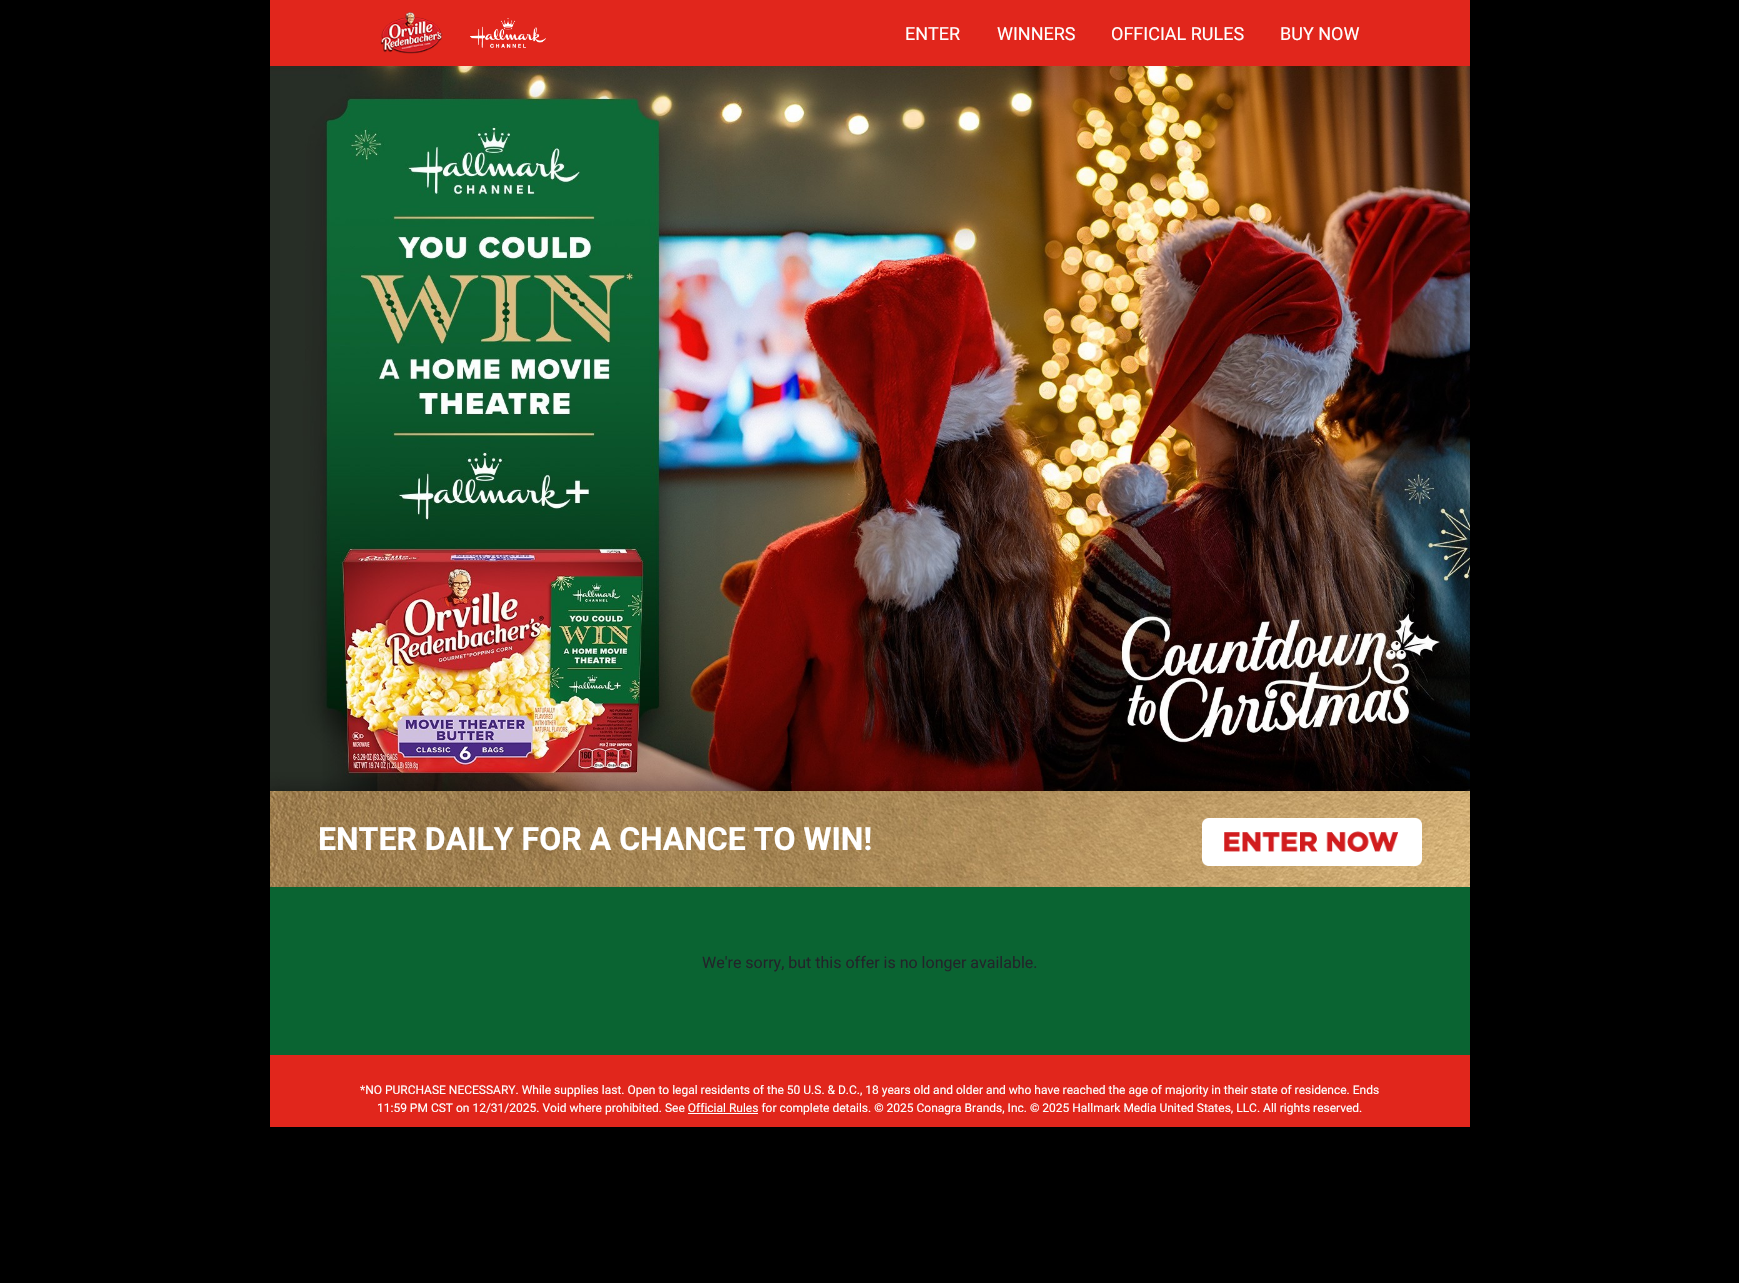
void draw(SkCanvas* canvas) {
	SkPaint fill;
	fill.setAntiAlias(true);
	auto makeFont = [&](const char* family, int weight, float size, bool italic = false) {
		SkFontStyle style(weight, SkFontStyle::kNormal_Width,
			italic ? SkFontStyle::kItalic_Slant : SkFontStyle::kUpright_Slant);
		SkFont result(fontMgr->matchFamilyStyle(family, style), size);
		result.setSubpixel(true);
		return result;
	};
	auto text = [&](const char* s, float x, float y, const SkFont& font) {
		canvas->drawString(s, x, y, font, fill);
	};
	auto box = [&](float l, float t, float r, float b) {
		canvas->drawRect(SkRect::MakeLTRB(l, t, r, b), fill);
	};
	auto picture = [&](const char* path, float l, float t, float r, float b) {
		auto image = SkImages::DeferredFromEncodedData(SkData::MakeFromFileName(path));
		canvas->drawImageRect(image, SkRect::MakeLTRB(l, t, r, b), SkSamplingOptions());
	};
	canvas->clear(0xFF000000);
	fill.setColor(0xFFE1261C);
	box(270, 0, 1470, 66);
	picture("image0.png", 380, 12, 443, 54);
	picture("image1.png", 470, 18, 546, 48);
	picture("image2.png", 270, 66, 1470, 791);
	picture("image3.png", 270, 791, 1470, 887);
	picture("image4.png", 1202, 818, 1422, 866);
	fill.setColor(0xFF0A6432);
	box(270, 887, 1470, 1055);
	fill.setColor(0xFFE1261C);
	box(270, 1055, 1470, 1127);
	fill.setColor(0xFFFFFFFF);
	box(688, 1113, 758, 1114);
	auto font1 = makeFont("Roboto", 400, 18);
	text("ENTER", 905, 40, font1);
	text("WINNERS", 997, 40, font1);
	text("OFFICIAL RULES", 1111, 40, font1);
	text("BUY NOW", 1280, 40, font1);
	auto font2 = makeFont("Roboto", 700, 32);
	text("ENTER DAILY FOR A CHANCE TO WIN!", 318, 850, font2);
	auto font3 = makeFont("Roboto", 400, 16);
	fill.setColor(0xFF212529);
	text("We're sorry, but this offer is no longer available.", 702, 968, font3);
	auto font4 = makeFont("Roboto", 400, 12);
	fill.setColor(0xFFFFFFFF);
	text("*NO PURCHASE NECESSARY. While supplies last. Open to legal residents of the 50 U.S. & D.C., 18 years old and older and who have reached the age of majority in their state of residence. Ends", 360, 1094, font4);
	text("11:59 PM CST on 12/31/2025. Void where prohibited. See Official Rules for complete details. © 2025 Conagra Brands, Inc. © 2025 Hallmark Media United States, LLC. All rights reserved.", 377, 1112, font4);
}
